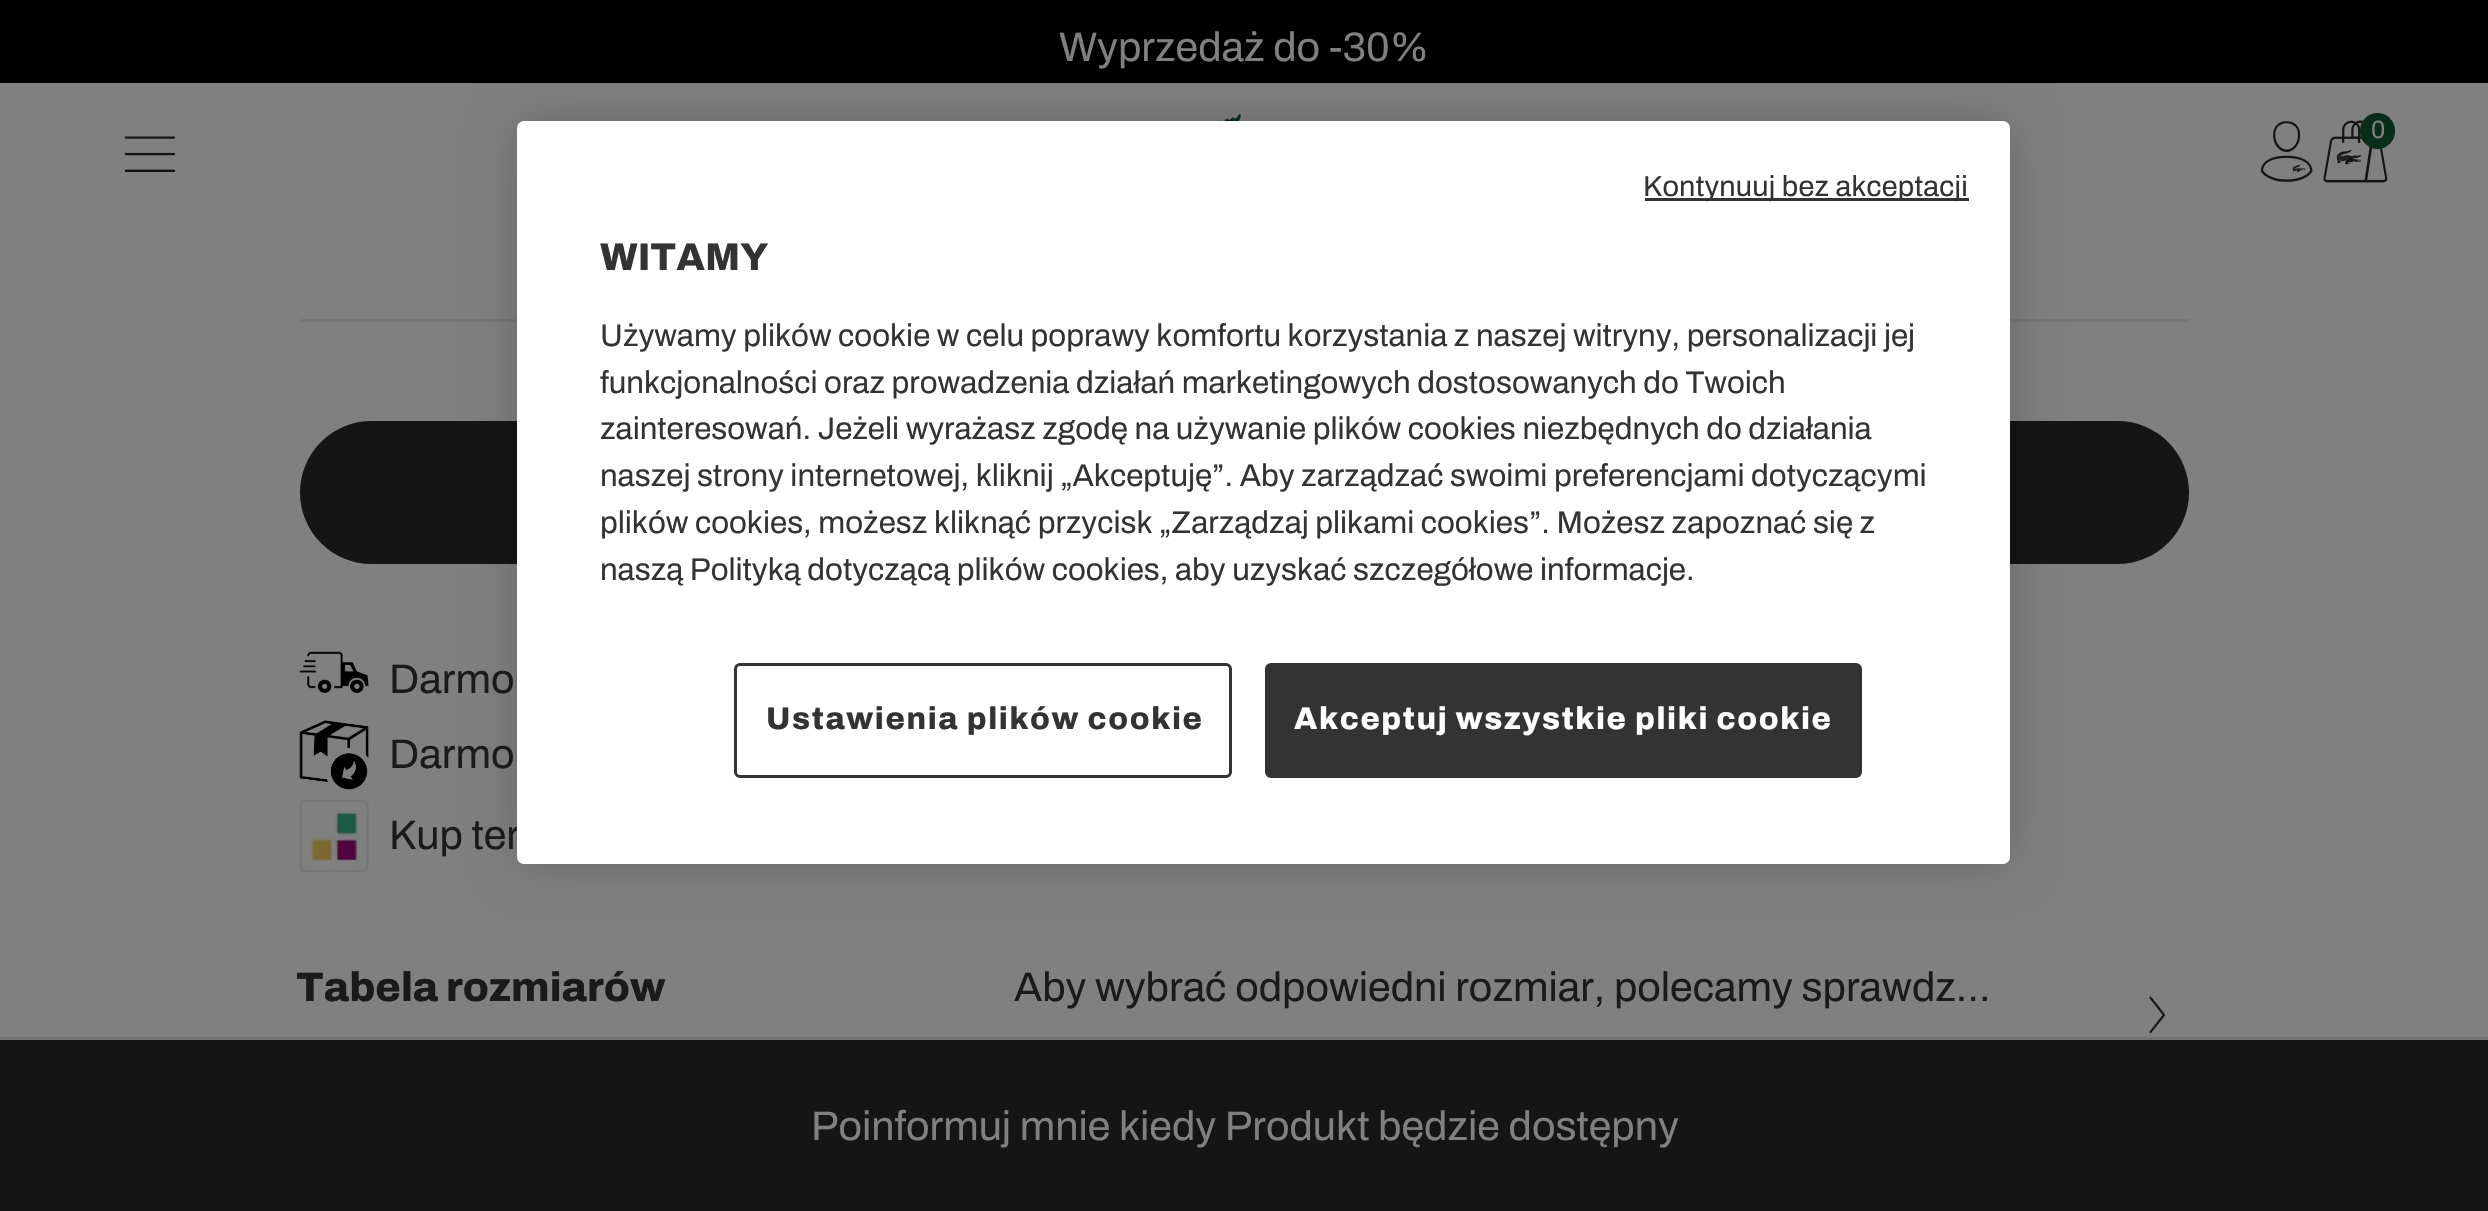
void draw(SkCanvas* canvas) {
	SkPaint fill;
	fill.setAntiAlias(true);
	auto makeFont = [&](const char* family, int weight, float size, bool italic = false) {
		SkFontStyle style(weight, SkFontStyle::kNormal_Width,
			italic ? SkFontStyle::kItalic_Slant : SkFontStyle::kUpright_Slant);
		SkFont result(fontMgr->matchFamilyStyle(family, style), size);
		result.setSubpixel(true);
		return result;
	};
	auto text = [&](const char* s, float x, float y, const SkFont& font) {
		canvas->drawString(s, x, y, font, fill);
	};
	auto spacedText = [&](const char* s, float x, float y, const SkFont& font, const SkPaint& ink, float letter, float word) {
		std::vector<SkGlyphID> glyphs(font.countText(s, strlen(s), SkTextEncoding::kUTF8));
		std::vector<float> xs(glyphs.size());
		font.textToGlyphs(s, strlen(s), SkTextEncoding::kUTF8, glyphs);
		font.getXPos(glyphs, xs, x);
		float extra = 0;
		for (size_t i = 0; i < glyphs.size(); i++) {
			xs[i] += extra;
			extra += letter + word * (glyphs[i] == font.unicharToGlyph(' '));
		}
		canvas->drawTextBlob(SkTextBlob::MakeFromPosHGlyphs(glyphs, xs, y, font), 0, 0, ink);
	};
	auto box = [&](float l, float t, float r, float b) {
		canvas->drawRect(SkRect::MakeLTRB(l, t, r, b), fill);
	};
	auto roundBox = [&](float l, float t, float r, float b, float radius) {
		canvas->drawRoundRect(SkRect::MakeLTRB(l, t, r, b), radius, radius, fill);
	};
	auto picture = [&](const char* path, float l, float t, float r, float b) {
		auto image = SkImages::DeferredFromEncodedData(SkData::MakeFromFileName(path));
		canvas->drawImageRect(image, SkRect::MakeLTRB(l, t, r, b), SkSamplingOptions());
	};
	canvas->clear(0xFF808080);
	fill.setColor(0xFF000000);
	box(0, 0, 2488, 83);
	picture("image0.png", 1219, 114, 1241, 121);
	picture("image1.png", 124, 136, 176, 172);
	picture("image2.png", 2260, 121, 2313, 182);
	picture("image3.png", 2323, 120, 2388, 183);
	fill.setColor(0xFF082D1A);
	roundBox(2360, 113, 2395, 149, 17.5f);
	fill.setColor(0xFF777777);
	box(300, 319, 2189, 322);
	fill.setColor(0xFF151515);
	roundBox(300, 421, 2189, 564, 71.5f);
	picture("image4.png", 299, 651, 369, 693);
	picture("image5.png", 299, 720, 369, 790);
	picture("image6.png", 299, 800, 369, 872);
	picture("image7.png", 2149, 996, 2166, 1034);
	fill.setColor(0xFF737373);
	box(0, 1037, 2488, 1040);
	fill.setColor(0xFF151515);
	box(0, 1040, 2488, 1211);
	fill.setColor(0x33000000);
	fill.setMaskFilter(SkMaskFilter::MakeBlur(kNormal_SkBlurStyle, 25));
	canvas->drawRoundRect(SkRect::MakeLTRB(517, 121, 2010, 864), 7, 7, fill);
	fill.setMaskFilter(nullptr);
	auto font1 = makeFont("Archivo", 400, 41.25f);
	fill.setColor(0xFF808080);
	text("Wyprzedaż do -30%", 1059, 61, font1);
	auto font2 = makeFont("Archivo", 400, 25);
	text("0", 2371, 138, font2);
	fill.setColor(0xFF1A1A1A);
	text("Darmo", 389, 693, font1);
	text("Darmo", 389, 768, font1);
	text("Kup ter", 389, 849, font1);
	auto font3 = makeFont("Archivo", 800, 41.25f);
	text("Tabela rozmiarów", 296, 1001, font3);
	text("Aby wybrać odpowiedni rozmiar, polecamy sprawdz…", 1014, 1001, font1);
	fill.setColor(0xFF808080);
	text("Poinformuj mnie kiedy Produkt będzie dostępny", 811, 1140, font1);
	fill.setColor(0xFFFFFFFF);
	roundBox(517, 121, 2010, 864, 7);
	fill.setColor(0xFF333333);
	box(1645, 198, 1969, 201);
	auto font4 = makeFont("Archivo", 400, 28.9f);
	spacedText("Kontynuuj bez akceptacji", 1643, 196, font4, fill, 0.25f, 0);
	auto font5 = makeFont("Archivo", 800, 38.5f);
	text("WITAMY", 600, 270, font5);
	auto font6 = makeFont("Archivo", 400, 31.3f);
	text("Używamy plików cookie w celu poprawy komfortu korzystania z naszej witryny, personalizacji jej", 600, 346, font6);
	text("funkcjonalności oraz prowadzenia działań marketingowych dostosowanych do Twoich", 600, 393, font6);
	text("zainteresowań. Jeżeli wyrażasz zgodę na używanie plików cookies niezbędnych do działania", 600, 439, font6);
	text("naszej strony internetowej, kliknij „Akceptuję”. Aby zarządzać swoimi preferencjami dotyczącymi", 600, 486, font6);
	text("plików cookies, możesz kliknąć przycisk „Zarządzaj plikami cookies”. Możesz zapoznać się z", 600, 533, font6);
	text("naszą Polityką dotyczącą plików cookies, aby uzyskać szczegółowe informacje.", 600, 580, font6);
	fill.setStyle(SkPaint::kStroke_Style);
	fill.setStrokeWidth(3);
	canvas->drawRoundRect(SkRect::MakeLTRB(735.5f, 664.5f, 1230.5f, 776.5f), 4.5f, 4.5f, fill);
	auto font7 = makeFont("Archivo", 800, 31.3f);
	fill.setStyle(SkPaint::kFill_Style);
	spacedText("Ustawienia plików cookie", 766, 729, font7, fill, 1.6f, 0);
	canvas->drawRoundRect(SkRect::MakeLTRB(1266.5f, 664.5f, 1860.5f, 776.5f), 4.5f, 4.5f, fill);
	fill.setStyle(SkPaint::kStroke_Style);
	canvas->drawRoundRect(SkRect::MakeLTRB(1266.5f, 664.5f, 1860.5f, 776.5f), 4.5f, 4.5f, fill);
	fill.setStyle(SkPaint::kFill_Style);
	fill.setColor(0xFFFFFFFF);
	spacedText("Akceptuj wszystkie pliki cookie", 1294, 729, font7, fill, 1.6f, 0);
}
